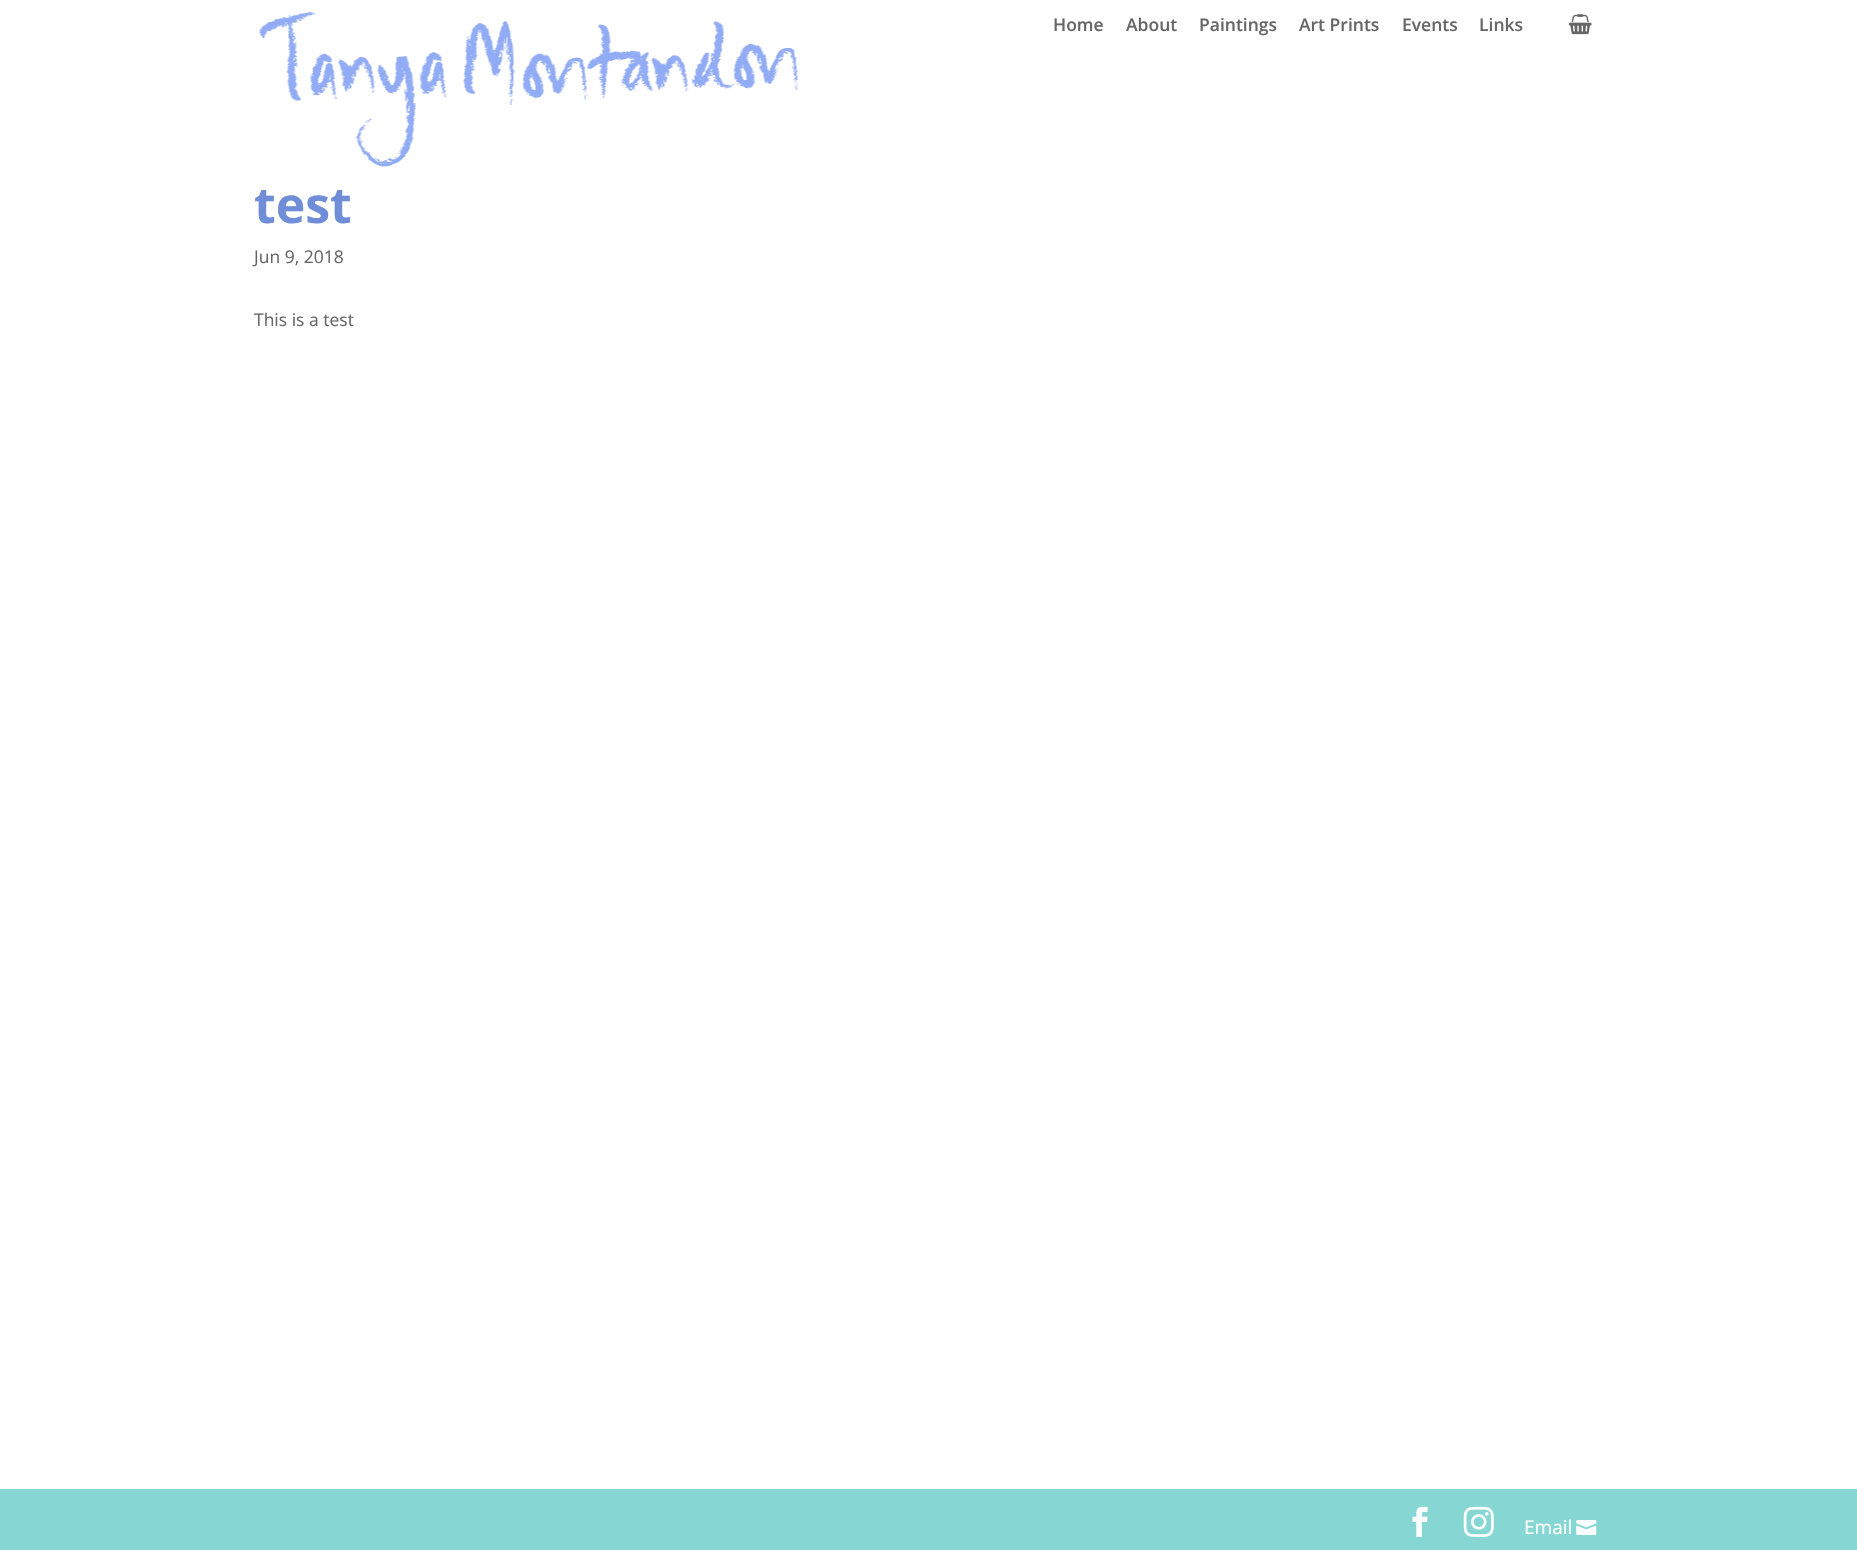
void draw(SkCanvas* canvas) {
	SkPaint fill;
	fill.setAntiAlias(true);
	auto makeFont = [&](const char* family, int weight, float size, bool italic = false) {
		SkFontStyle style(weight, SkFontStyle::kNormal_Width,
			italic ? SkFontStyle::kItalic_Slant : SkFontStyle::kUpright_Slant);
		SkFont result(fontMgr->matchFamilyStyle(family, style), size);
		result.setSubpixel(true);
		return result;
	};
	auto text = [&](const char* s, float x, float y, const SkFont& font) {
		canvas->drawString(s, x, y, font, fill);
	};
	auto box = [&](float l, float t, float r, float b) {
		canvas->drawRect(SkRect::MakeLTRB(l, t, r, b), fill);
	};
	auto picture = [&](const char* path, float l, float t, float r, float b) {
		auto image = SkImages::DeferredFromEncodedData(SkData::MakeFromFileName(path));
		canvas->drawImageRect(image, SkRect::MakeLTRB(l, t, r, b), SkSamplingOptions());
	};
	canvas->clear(0xFFFFFFFF);
	picture("image0.png", 259, 12, 799, 167);
	picture("image1.png", 1568, 14, 1592, 35);
	fill.setColor(0xFF86D7D3);
	box(0, 1489, 1857, 1550);
	picture("image2.png", 1412, 1506, 1428, 1537);
	picture("image3.png", 1463, 1506, 1494, 1537);
	picture("image4.png", 1576, 1520, 1597, 1535);
	auto font1 = makeFont("Open Sans", 600, 17.5f);
	fill.setColor(0xFF666666);
	text("Home", 1053, 31, font1);
	text("About", 1126, 31, font1);
	text("Paintings", 1199, 31, font1);
	text("Art Prints", 1299, 31, font1);
	text("Events", 1402, 31, font1);
	text("Links", 1479, 31, font1);
	auto font2 = makeFont("Open Sans", 700, 50);
	fill.setColor(0xFF708DD7);
	text("test", 254, 223, font2);
	auto font3 = makeFont("Open Sans", 400, 17.5f);
	fill.setColor(0xFF666666);
	text("Jun 9, 2018", 254, 263, font3);
	text("This is a test", 254, 326, font3);
	auto font4 = makeFont("Open Sans", 400, 19);
	fill.setColor(0xFFFFFFFF);
	text("Email", 1524, 1534, font4);
}
